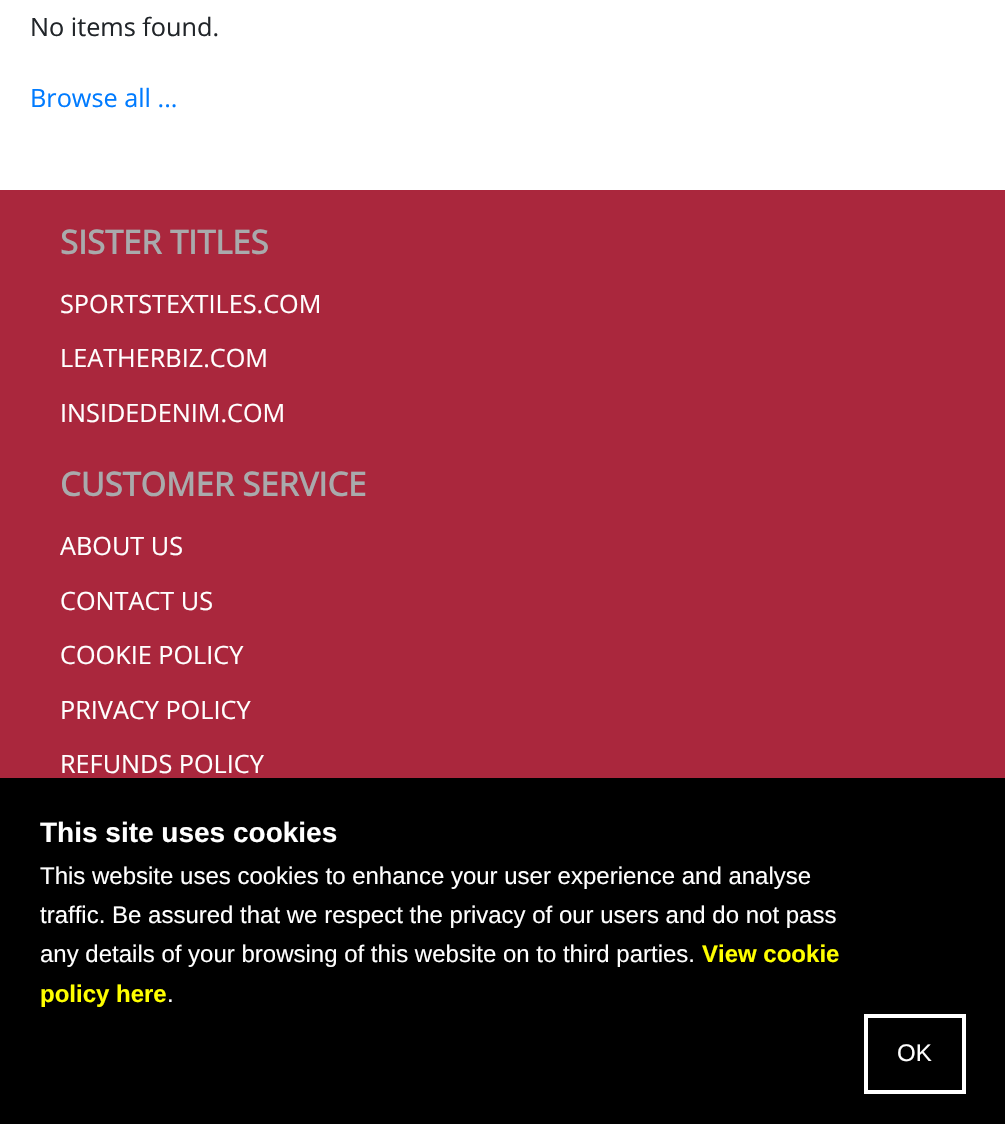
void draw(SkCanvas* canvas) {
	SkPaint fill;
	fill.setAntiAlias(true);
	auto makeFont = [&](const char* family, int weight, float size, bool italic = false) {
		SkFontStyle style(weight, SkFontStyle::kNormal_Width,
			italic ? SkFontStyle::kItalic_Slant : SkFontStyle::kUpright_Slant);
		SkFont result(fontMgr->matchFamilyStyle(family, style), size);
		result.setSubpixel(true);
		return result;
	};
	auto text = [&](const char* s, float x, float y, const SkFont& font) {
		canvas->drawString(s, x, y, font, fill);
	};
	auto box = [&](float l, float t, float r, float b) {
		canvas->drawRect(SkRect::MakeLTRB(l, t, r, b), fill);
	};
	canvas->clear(0xFFFFFFFF);
	fill.setColor(0xFFAA273D);
	box(0, 190, 1005, 778);
	fill.setColor(0xFF000000);
	box(0, 778, 1005, 1124);
	fill.setStyle(SkPaint::kStroke_Style);
	fill.setStrokeWidth(4);
	fill.setColor(0xFFFFFFFF);
	canvas->drawRect(SkRect::MakeLTRB(866, 1016, 964, 1092), fill);
	auto font1 = makeFont("Open Sans", 400, 25.25f);
	fill.setStyle(SkPaint::kFill_Style);
	fill.setColor(0xFF212529);
	text("No items found.", 30, 36, font1);
	fill.setColor(0xFF007BFF);
	text("Browse all ...", 30, 107, font1);
	auto font2 = makeFont("Open Sans", 700, 32.75f);
	fill.setColor(0xFFA9AAAC);
	text("SISTER TITLES", 60, 254, font2);
	fill.setColor(0xFFFFFFFF);
	text("SPORTSTEXTILES.COM", 60, 313, font1);
	text("LEATHERBIZ.COM", 60, 367, font1);
	text("INSIDEDENIM.COM", 60, 422, font1);
	fill.setColor(0xFFA9AAAC);
	text("CUSTOMER SERVICE", 60, 496, font2);
	fill.setColor(0xFFFFFFFF);
	text("ABOUT US", 60, 555, font1);
	text("CONTACT US", 60, 610, font1);
	text("COOKIE POLICY", 60, 664, font1);
	text("PRIVACY POLICY", 60, 719, font1);
	text("REFUNDS POLICY", 60, 773, font1);
	auto font3 = makeFont("Liberation Sans", 700, 28);
	text("This site uses cookies", 40, 842, font3);
	auto font4 = makeFont("Liberation Sans", 400, 24);
	text("This website uses cookies to enhance your user experience and analyse", 40, 884, font4);
	text("traffic. Be assured that we respect the privacy of our users and do not pass", 40, 923, font4);
	text("any details of your browsing of this website on to third parties.", 40, 962, font4);
	auto font5 = makeFont("Liberation Sans", 700, 24);
	fill.setColor(0xFFFFFF00);
	text("View cookie", 702, 962, font5);
	text("policy here", 40, 1002, font5);
	fill.setColor(0xFFFFFFFF);
	text(".", 167, 1002, font4);
	text("OK", 897, 1061, font4);
}
